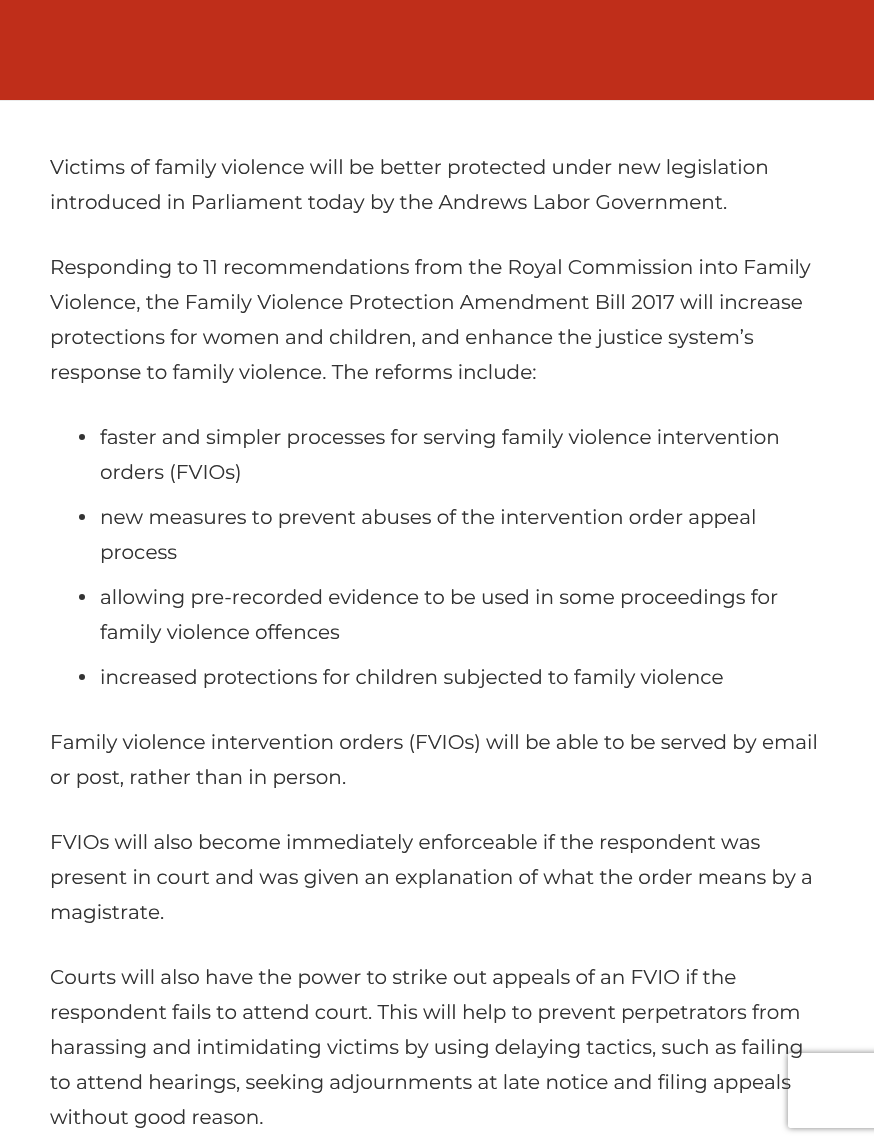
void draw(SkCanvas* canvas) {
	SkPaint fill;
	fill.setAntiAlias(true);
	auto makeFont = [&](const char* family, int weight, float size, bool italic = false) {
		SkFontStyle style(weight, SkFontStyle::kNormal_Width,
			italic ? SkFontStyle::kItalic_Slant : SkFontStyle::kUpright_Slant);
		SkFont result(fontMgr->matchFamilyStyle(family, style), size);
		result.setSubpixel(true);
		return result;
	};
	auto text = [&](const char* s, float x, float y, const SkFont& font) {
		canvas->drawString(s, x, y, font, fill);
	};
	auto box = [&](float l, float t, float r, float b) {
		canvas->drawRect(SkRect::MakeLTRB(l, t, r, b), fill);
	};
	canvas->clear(0xFFFFFFFF);
	fill.setColor(0xFFEBEBEB);
	box(0, 100, 874, 101);
	fill.setColor(0xFFBF2E1A);
	box(0, 0, 874, 100);
	fill.setColor(0xFF333333);
	canvas->drawCircle(82, 437, 3, fill);
	canvas->drawCircle(82, 517, 3, fill);
	canvas->drawCircle(82, 597, 3, fill);
	canvas->drawCircle(82, 677, 3, fill);
	canvas->save();
	canvas->clipPath(SkPathBuilder(SkPathFillType::kEvenOdd).moveTo(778, 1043).lineTo(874, 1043).lineTo(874, 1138).lineTo(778, 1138).close().moveTo(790.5f, 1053).lineTo(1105.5f, 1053).cubicTo(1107, 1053, 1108, 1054, 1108, 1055.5f).lineTo(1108, 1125.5f).cubicTo(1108, 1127, 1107, 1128, 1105.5f, 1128).lineTo(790.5f, 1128).cubicTo(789, 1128, 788, 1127, 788, 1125.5f).lineTo(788, 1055.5f).cubicTo(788, 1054, 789, 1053, 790.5f, 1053).close().detach(), true);
	fill.setColor(0xFF808080);
	fill.setMaskFilter(SkMaskFilter::MakeBlur(kNormal_SkBlurStyle, 3));
	canvas->drawRoundRect(SkRect::MakeLTRB(788, 1053, 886, 1128), 2.5f, 2.5f, fill);
	fill.setMaskFilter(nullptr);
	canvas->restore();
	auto font1 = makeFont("Montserrat", 400, 20);
	fill.setColor(0xFF333333);
	text("Victims of family violence will be better protected under new legislation", 50, 174, font1);
	text("introduced in Parliament today by the Andrews Labor Government.", 50, 209, font1);
	text("Responding to 11 recommendations from the Royal Commission into Family", 50, 274, font1);
	text("Violence, the Family Violence Protection Amendment Bill 2017 will increase", 50, 309, font1);
	text("protections for women and children, and enhance the justice system’s", 50, 344, font1);
	text("response to family violence. The reforms include:", 50, 379, font1);
	text("faster and simpler processes for serving family violence intervention", 100, 444, font1);
	text("orders (FVIOs)", 100, 479, font1);
	text("new measures to prevent abuses of the intervention order appeal", 100, 524, font1);
	text("process", 100, 559, font1);
	text("allowing pre-recorded evidence to be used in some proceedings for", 100, 604, font1);
	text("family violence offences", 100, 639, font1);
	text("increased protections for children subjected to family violence", 100, 684, font1);
	text("Family violence intervention orders (FVIOs) will be able to be served by email", 50, 749, font1);
	text("or post, rather than in person.", 50, 784, font1);
	text("FVIOs will also become immediately enforceable if the respondent was", 50, 849, font1);
	text("present in court and was given an explanation of what the order means by a", 50, 884, font1);
	text("magistrate.", 50, 919, font1);
	text("Courts will also have the power to strike out appeals of an FVIO if the", 50, 984, font1);
	text("respondent fails to attend court. This will help to prevent perpetrators from", 50, 1019, font1);
	text("harassing and intimidating victims by using delaying tactics, such as failing", 50, 1054, font1);
	text("to attend hearings, seeking adjournments at late notice and filing appeals", 50, 1089, font1);
	text("without good reason.", 50, 1124, font1);
}
